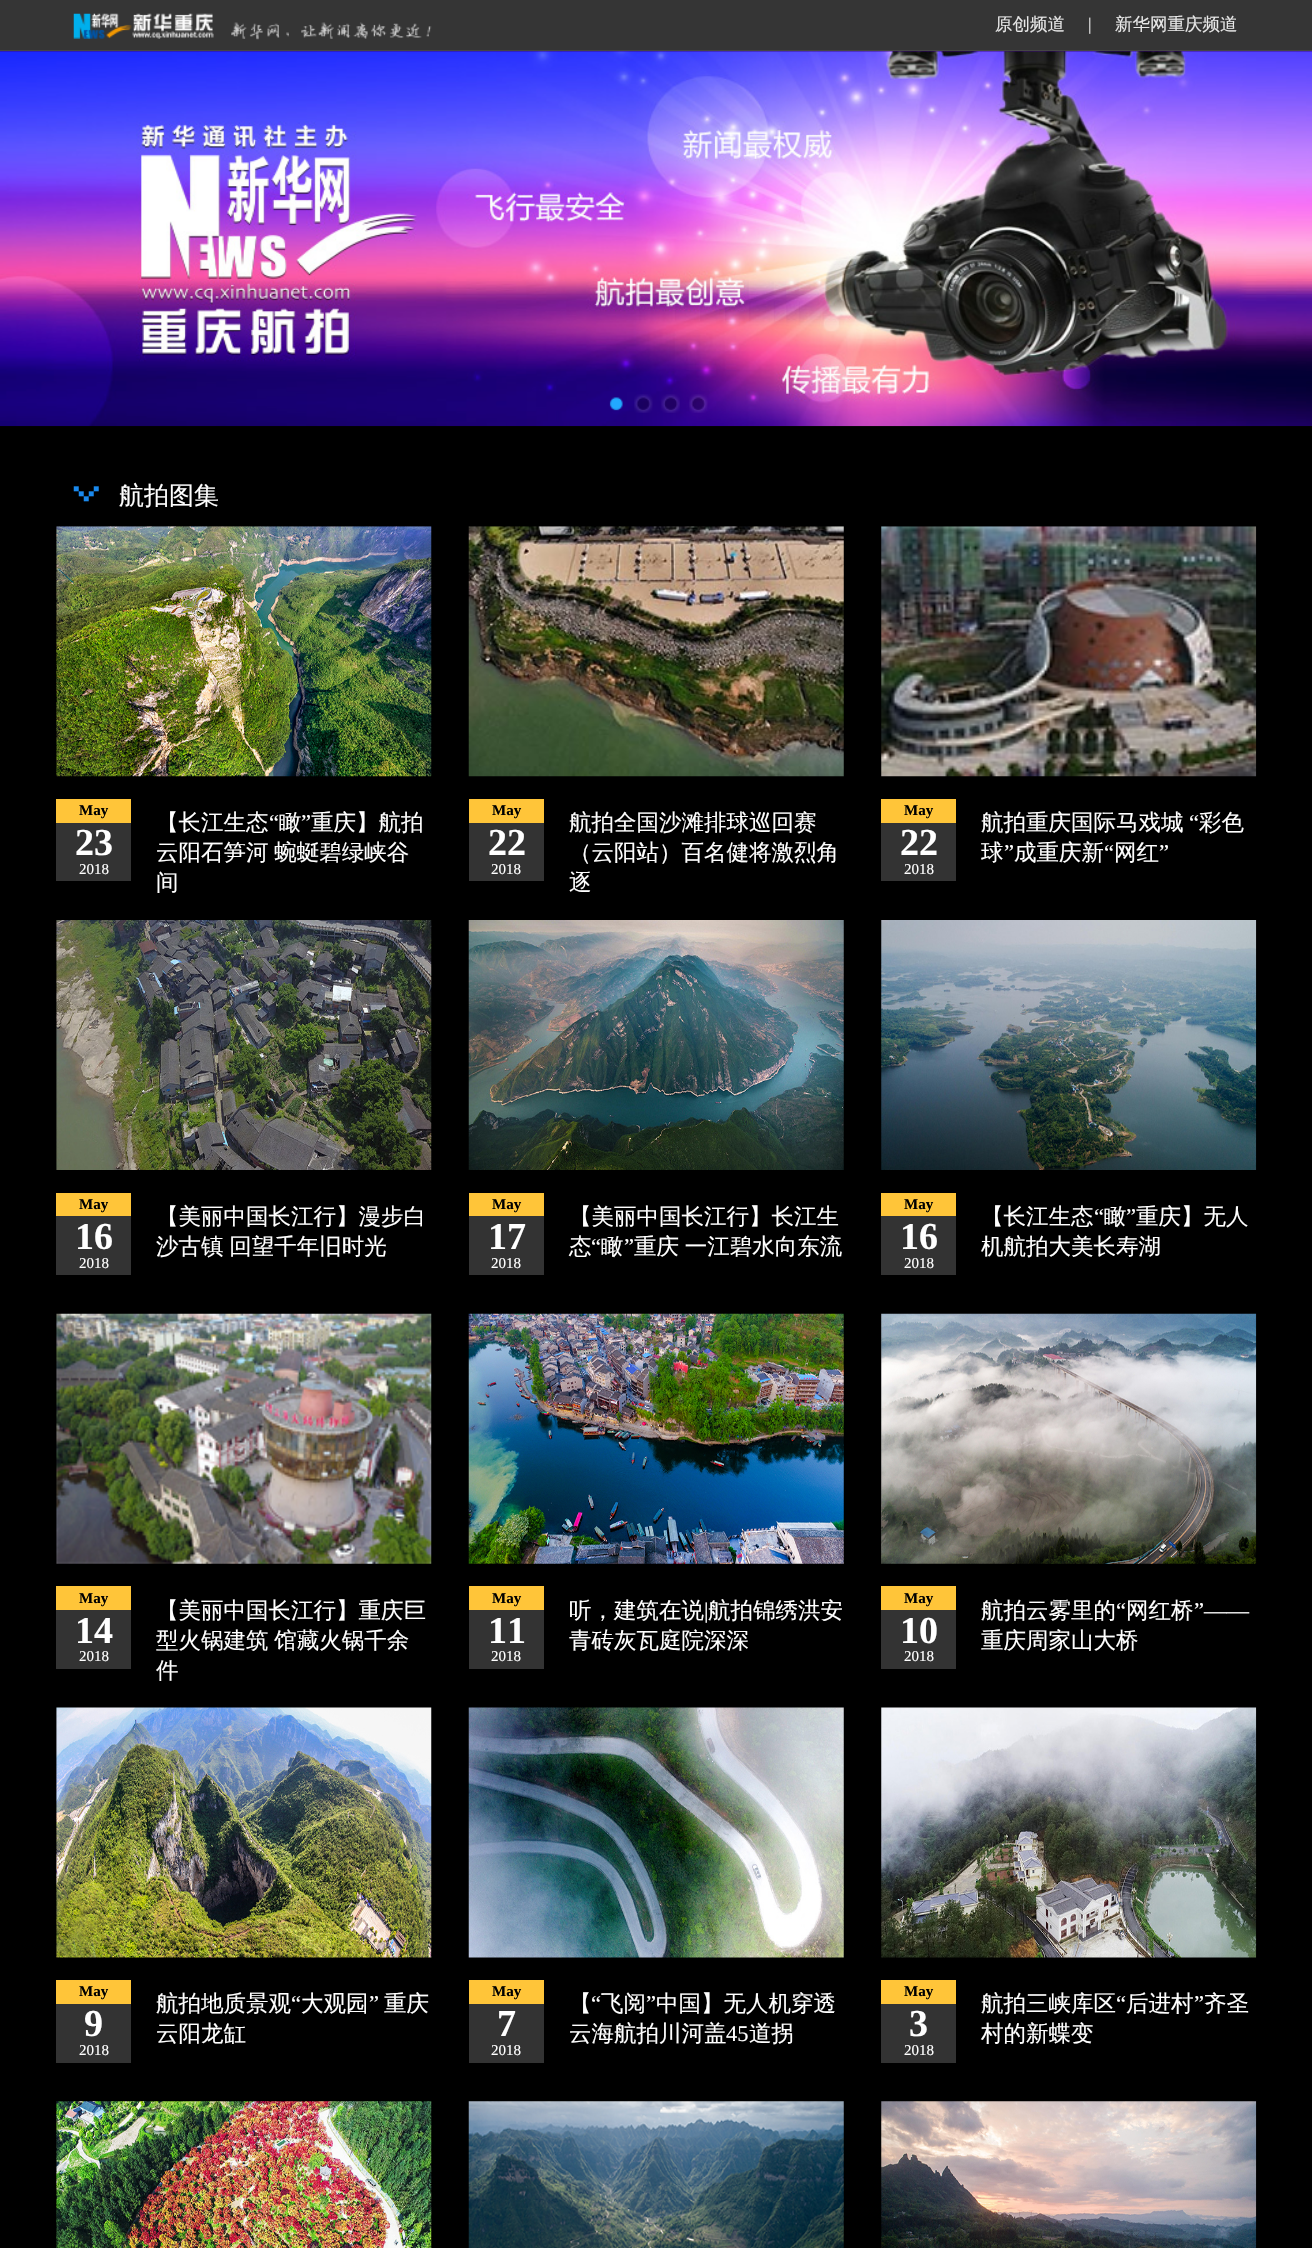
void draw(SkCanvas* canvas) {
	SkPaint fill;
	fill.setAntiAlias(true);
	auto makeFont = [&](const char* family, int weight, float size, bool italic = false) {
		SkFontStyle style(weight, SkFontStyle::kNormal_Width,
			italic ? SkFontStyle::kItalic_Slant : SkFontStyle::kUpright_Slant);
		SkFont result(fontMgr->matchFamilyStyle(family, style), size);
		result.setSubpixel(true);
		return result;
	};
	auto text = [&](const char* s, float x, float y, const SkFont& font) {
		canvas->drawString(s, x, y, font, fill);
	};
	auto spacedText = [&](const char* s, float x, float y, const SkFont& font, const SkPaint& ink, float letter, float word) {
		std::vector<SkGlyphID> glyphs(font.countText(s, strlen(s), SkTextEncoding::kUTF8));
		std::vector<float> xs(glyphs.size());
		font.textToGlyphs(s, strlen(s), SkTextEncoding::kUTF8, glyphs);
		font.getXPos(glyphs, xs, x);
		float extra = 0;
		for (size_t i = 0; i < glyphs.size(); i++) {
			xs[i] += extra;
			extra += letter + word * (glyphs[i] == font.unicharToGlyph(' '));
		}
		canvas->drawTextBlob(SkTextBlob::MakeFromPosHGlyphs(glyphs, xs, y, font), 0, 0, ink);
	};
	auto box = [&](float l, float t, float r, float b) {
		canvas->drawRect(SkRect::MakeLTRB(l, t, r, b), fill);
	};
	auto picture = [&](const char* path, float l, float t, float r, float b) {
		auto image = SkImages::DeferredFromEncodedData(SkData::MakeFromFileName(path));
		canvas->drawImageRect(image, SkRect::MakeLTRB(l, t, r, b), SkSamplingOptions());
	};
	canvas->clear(0xFF000000);
	fill.setColor(0xFF353535);
	box(0, 0, 1312, 50);
	fill.setColor(0xFF454545);
	box(0, 50, 1312, 51);
	picture("image0.png", 73, 13, 432, 40);
	fill.setColor(0xFF39087B);
	box(0, 51, 1312, 52);
	picture("image1.png", 0, 51, 1312, 427);
	picture("image2.png", 609, 397, 623, 411);
	picture("image3.png", 634, 394, 653, 413);
	picture("image4.png", 661, 394, 680, 413);
	picture("image5.png", 689, 394, 708, 413);
	picture("image6.png", 73, 486, 99, 502);
	picture("image7.png", 56, 526, 432, 777);
	fill.setColor(0xFFFFC539);
	box(56, 799, 131, 823);
	fill.setColor(0xFF333333);
	box(56, 823, 131, 881);
	picture("image8.png", 468, 526, 844, 777);
	fill.setColor(0xFFFFC539);
	box(469, 799, 544, 823);
	fill.setColor(0xFF333333);
	box(469, 823, 544, 881);
	picture("image9.png", 881, 526, 1257, 777);
	fill.setColor(0xFFFFC539);
	box(881, 799, 956, 823);
	fill.setColor(0xFF333333);
	box(881, 823, 956, 881);
	picture("image10.png", 56, 920, 432, 1170);
	fill.setColor(0xFFFFC539);
	box(56, 1193, 131, 1216);
	fill.setColor(0xFF333333);
	box(56, 1216, 131, 1275);
	picture("image11.png", 468, 920, 844, 1170);
	fill.setColor(0xFFFFC539);
	box(469, 1193, 544, 1216);
	fill.setColor(0xFF333333);
	box(469, 1216, 544, 1275);
	picture("image12.png", 881, 920, 1257, 1170);
	fill.setColor(0xFFFFC539);
	box(881, 1193, 956, 1216);
	fill.setColor(0xFF333333);
	box(881, 1216, 956, 1275);
	picture("image13.png", 56, 1313, 432, 1564);
	fill.setColor(0xFFFFC539);
	box(56, 1586, 131, 1610);
	fill.setColor(0xFF333333);
	box(56, 1610, 131, 1669);
	picture("image14.png", 468, 1313, 844, 1564);
	fill.setColor(0xFFFFC539);
	box(469, 1586, 544, 1610);
	fill.setColor(0xFF333333);
	box(469, 1610, 544, 1669);
	picture("image15.png", 881, 1313, 1257, 1564);
	fill.setColor(0xFFFFC539);
	box(881, 1586, 956, 1610);
	fill.setColor(0xFF333333);
	box(881, 1610, 956, 1669);
	picture("image16.png", 56, 1707, 432, 1958);
	fill.setColor(0xFFFFC539);
	box(56, 1980, 131, 2004);
	fill.setColor(0xFF333333);
	box(56, 2004, 131, 2063);
	picture("image17.png", 468, 1707, 844, 1958);
	fill.setColor(0xFFFFC539);
	box(469, 1980, 544, 2004);
	fill.setColor(0xFF333333);
	box(469, 2004, 544, 2063);
	picture("image18.png", 881, 1707, 1257, 1958);
	fill.setColor(0xFFFFC539);
	box(881, 1980, 956, 2004);
	fill.setColor(0xFF333333);
	box(881, 2004, 956, 2063);
	picture("image19.png", 56, 2101, 432, 2248);
	picture("image20.png", 468, 2101, 844, 2248);
	picture("image21.png", 881, 2101, 1257, 2248);
	auto font1 = makeFont("WenQuanYi Zen Hei", 500, 17.5f);
	fill.setColor(0xFFE8E8E8);
	text("原创频道", 995, 30, font1);
	auto font2 = makeFont("Liberation Serif", 400, 17.5f);
	text("|", 1088, 30, font2);
	text("新华网重庆频道", 1115, 30, font1);
	auto font3 = makeFont("WenQuanYi Zen Hei", 500, 25);
	fill.setColor(0xFFFFFFFF);
	text("航拍图集", 119, 504, font3);
	auto font4 = makeFont("Liberation Serif", 700, 15);
	fill.setColor(0xFF000000);
	text("May", 79, 815, font4);
	auto font5 = makeFont("Liberation Serif", 700, 38);
	fill.setColor(0xFFFFFFFF);
	text("23", 75, 855, font5);
	auto font6 = makeFont("Liberation Serif", 400, 15);
	text("2018", 79, 874, font6);
	auto font7 = makeFont("WenQuanYi Zen Hei", 500, 22.5f);
	text("【长江生态", 156, 830, font7);
	auto font8 = makeFont("Liberation Serif", 400, 22.5f);
	text("“", 269, 830, font8);
	text("瞰", 279, 830, font7);
	text("”", 301, 830, font8);
	text("重庆】航拍", 311, 830, font7);
	spacedText("云阳石笋河 蜿蜒碧绿峡谷", 156, 860, font7, fill, 0, -1);
	text("间", 156, 890, font7);
	fill.setColor(0xFF000000);
	text("May", 492, 815, font4);
	fill.setColor(0xFFFFFFFF);
	text("22", 488, 855, font5);
	text("2018", 491, 874, font6);
	text("航拍全国沙滩排球巡回赛", 569, 830, font7);
	text("（云阳站）百名健将激烈角", 569, 860, font7);
	text("逐", 569, 890, font7);
	fill.setColor(0xFF000000);
	text("May", 904, 815, font4);
	fill.setColor(0xFFFFFFFF);
	text("22", 900, 855, font5);
	text("2018", 904, 874, font6);
	text("航拍重庆国际马戏城", 981, 830, font7);
	text("“", 1189, 830, font8);
	text("彩色", 1199, 830, font7);
	text("球", 981, 860, font7);
	text("”", 1004, 860, font8);
	text("成重庆新", 1014, 860, font7);
	text("“", 1104, 860, font8);
	text("网红", 1114, 860, font7);
	text("”", 1159, 860, font8);
	fill.setColor(0xFF000000);
	text("May", 79, 1209, font4);
	fill.setColor(0xFFFFFFFF);
	text("16", 75, 1249, font5);
	text("2018", 79, 1268, font6);
	text("【美丽中国长江行】漫步白", 156, 1224, font7);
	spacedText("沙古镇 回望千年旧时光", 156, 1254, font7, fill, 0, -1);
	fill.setColor(0xFF000000);
	text("May", 492, 1209, font4);
	fill.setColor(0xFFFFFFFF);
	text("17", 488, 1249, font5);
	text("2018", 491, 1268, font6);
	text("【美丽中国长江行】长江生", 569, 1224, font7);
	text("态", 569, 1254, font7);
	text("“", 591, 1254, font8);
	text("瞰", 601, 1254, font7);
	text("”", 624, 1254, font8);
	spacedText("重庆 一江碧水向东流", 634, 1254, font7, fill, 0, -1);
	fill.setColor(0xFF000000);
	text("May", 904, 1209, font4);
	fill.setColor(0xFFFFFFFF);
	text("16", 900, 1249, font5);
	text("2018", 904, 1268, font6);
	text("【长江生态", 981, 1224, font7);
	text("“", 1094, 1224, font8);
	text("瞰", 1104, 1224, font7);
	text("”", 1126, 1224, font8);
	text("重庆】无人", 1136, 1224, font7);
	text("机航拍大美长寿湖", 981, 1254, font7);
	fill.setColor(0xFF000000);
	text("May", 79, 1603, font4);
	fill.setColor(0xFFFFFFFF);
	text("14", 75, 1643, font5);
	text("2018", 79, 1661, font6);
	text("【美丽中国长江行】重庆巨", 156, 1618, font7);
	spacedText("型火锅建筑 馆藏火锅千余", 156, 1648, font7, fill, 0, -1);
	text("件", 156, 1678, font7);
	fill.setColor(0xFF000000);
	text("May", 492, 1603, font4);
	fill.setColor(0xFFFFFFFF);
	text("11", 488, 1643, font5);
	text("2018", 491, 1661, font6);
	text("听，建筑在说", 569, 1618, font7);
	text("|", 704, 1618, font8);
	text("航拍锦绣洪安", 708, 1618, font7);
	text("青砖灰瓦庭院深深", 569, 1648, font7);
	fill.setColor(0xFF000000);
	text("May", 904, 1603, font4);
	fill.setColor(0xFFFFFFFF);
	text("10", 900, 1643, font5);
	text("2018", 904, 1661, font6);
	text("航拍云雾里的", 981, 1618, font7);
	text("“", 1116, 1618, font8);
	text("网红桥", 1126, 1618, font7);
	text("”——", 1194, 1618, font8);
	text("重庆周家山大桥", 981, 1648, font7);
	fill.setColor(0xFF000000);
	text("May", 79, 1996, font4);
	fill.setColor(0xFFFFFFFF);
	text("9", 84, 2036, font5);
	text("2018", 79, 2055, font6);
	text("航拍地质景观", 156, 2011, font7);
	text("“", 291, 2011, font8);
	text("大观园", 301, 2011, font7);
	text("”", 369, 2011, font8);
	text("重庆", 384, 2011, font7);
	text("云阳龙缸", 156, 2041, font7);
	fill.setColor(0xFF000000);
	text("May", 492, 1996, font4);
	fill.setColor(0xFFFFFFFF);
	text("7", 497, 2036, font5);
	text("2018", 491, 2055, font6);
	text("【", 569, 2011, font7);
	text("“", 591, 2011, font8);
	text("飞阅", 601, 2011, font7);
	text("”", 646, 2011, font8);
	text("中国】无人机穿透", 656, 2011, font7);
	text("云海航拍川河盖", 569, 2041, font7);
	text("45", 726, 2041, font8);
	text("道拐", 749, 2041, font7);
	fill.setColor(0xFF000000);
	text("May", 904, 1996, font4);
	fill.setColor(0xFFFFFFFF);
	text("3", 909, 2036, font5);
	text("2018", 904, 2055, font6);
	text("航拍三峡库区", 981, 2011, font7);
	text("“", 1116, 2011, font8);
	text("后进村", 1126, 2011, font7);
	text("”", 1194, 2011, font8);
	text("齐圣", 1204, 2011, font7);
	text("村的新蝶变", 981, 2041, font7);
}
